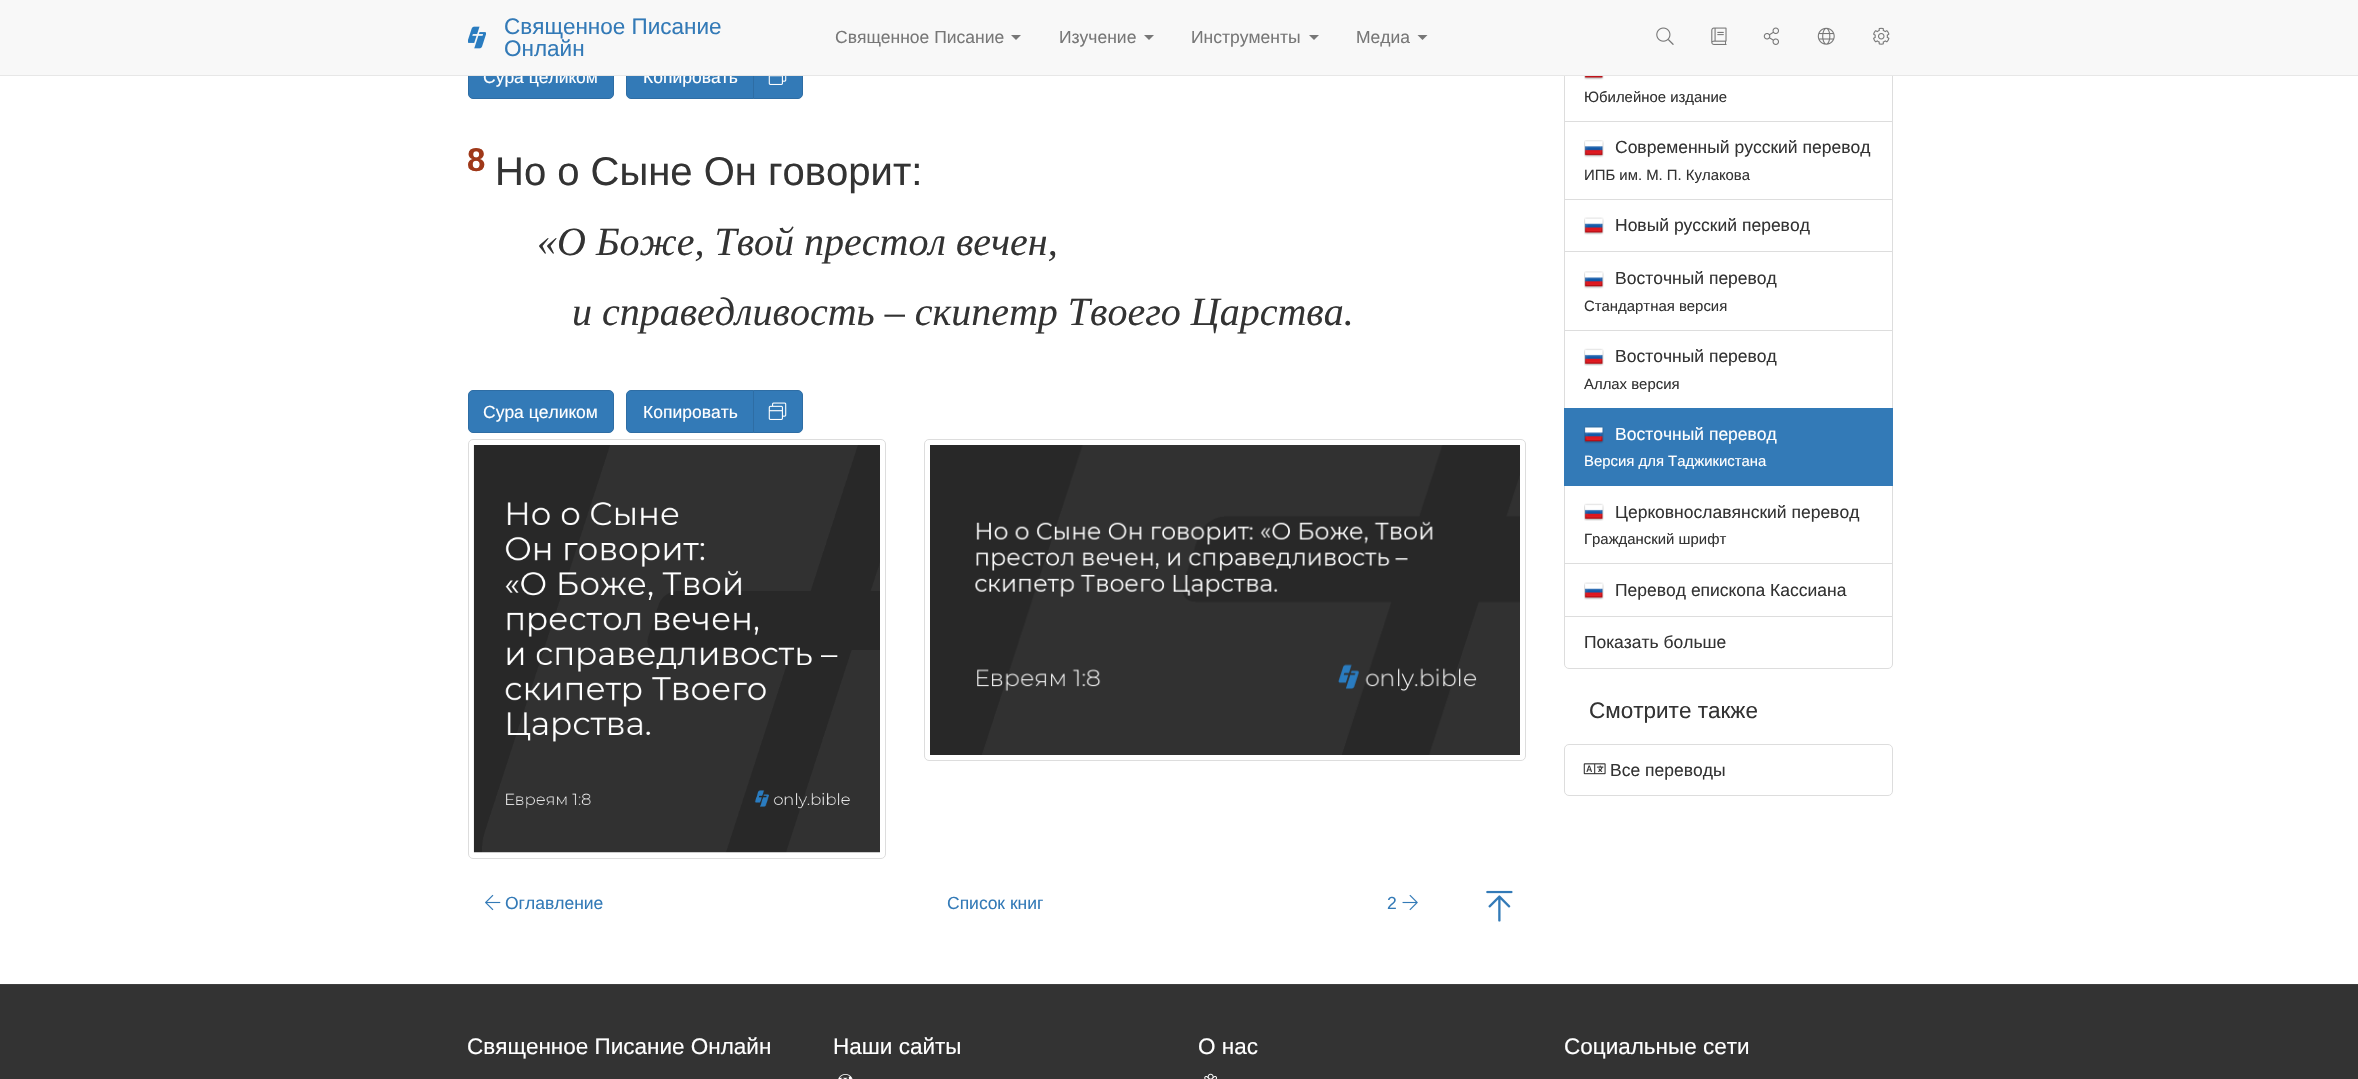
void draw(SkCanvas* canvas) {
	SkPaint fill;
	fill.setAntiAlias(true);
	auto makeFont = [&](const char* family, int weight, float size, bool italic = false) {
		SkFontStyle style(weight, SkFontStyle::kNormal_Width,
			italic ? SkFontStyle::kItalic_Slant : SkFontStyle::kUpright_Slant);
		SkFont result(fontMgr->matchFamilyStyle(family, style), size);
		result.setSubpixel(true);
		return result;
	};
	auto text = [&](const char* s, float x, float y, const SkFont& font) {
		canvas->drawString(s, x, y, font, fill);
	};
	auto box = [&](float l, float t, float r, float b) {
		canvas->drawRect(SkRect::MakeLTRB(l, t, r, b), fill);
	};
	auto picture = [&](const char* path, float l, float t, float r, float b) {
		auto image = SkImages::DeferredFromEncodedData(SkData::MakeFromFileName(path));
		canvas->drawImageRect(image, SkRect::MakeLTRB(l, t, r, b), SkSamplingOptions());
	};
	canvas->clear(0xFFFFFFFF);
	fill.setColor(0xFF337AB7);
	canvas->drawRoundRect(SkRect::MakeLTRB(468.5f, 56.5f, 613.5f, 98.5f), 4.5f, 4.5f, fill);
	fill.setStyle(SkPaint::kStroke_Style);
	fill.setStrokeWidth(1);
	fill.setColor(0xFF2E6DA4);
	canvas->drawRoundRect(SkRect::MakeLTRB(468.5f, 56.5f, 613.5f, 98.5f), 4.5f, 4.5f, fill);
	fill.setStyle(SkPaint::kFill_Style);
	fill.setColor(0xFF337AB7);
	canvas->drawPath(SkPathBuilder().moveTo(631, 56.5f).lineTo(753.5f, 56.5f).lineTo(753.5f, 98.5f).lineTo(631, 98.5f).cubicTo(628.5f, 98.5f, 626.5f, 96.5f, 626.5f, 94).lineTo(626.5f, 61).cubicTo(626.5f, 58.5f, 628.5f, 56.5f, 631, 56.5f).close().detach(), fill);
	fill.setStyle(SkPaint::kStroke_Style);
	fill.setColor(0xFF2E6DA4);
	canvas->drawPath(SkPathBuilder().moveTo(631, 56.5f).lineTo(753.5f, 56.5f).lineTo(753.5f, 98.5f).lineTo(631, 98.5f).cubicTo(628.5f, 98.5f, 626.5f, 96.5f, 626.5f, 94).lineTo(626.5f, 61).cubicTo(626.5f, 58.5f, 628.5f, 56.5f, 631, 56.5f).close().detach(), fill);
	fill.setStyle(SkPaint::kFill_Style);
	fill.setColor(0xFF337AB7);
	canvas->drawPath(SkPathBuilder().moveTo(753.5f, 56.5f).lineTo(798, 56.5f).cubicTo(800.5f, 56.5f, 802.5f, 58.5f, 802.5f, 61).lineTo(802.5f, 94).cubicTo(802.5f, 96.5f, 800.5f, 98.5f, 798, 98.5f).lineTo(753.5f, 98.5f).close().detach(), fill);
	fill.setStyle(SkPaint::kStroke_Style);
	fill.setColor(0xFF2E6DA4);
	canvas->drawPath(SkPathBuilder().moveTo(753.5f, 56.5f).lineTo(798, 56.5f).cubicTo(800.5f, 56.5f, 802.5f, 58.5f, 802.5f, 61).lineTo(802.5f, 94).cubicTo(802.5f, 96.5f, 800.5f, 98.5f, 798, 98.5f).lineTo(753.5f, 98.5f).close().detach(), fill);
	picture("image6.png", 768, 76, 787, 85);
	fill.setStyle(SkPaint::kFill_Style);
	fill.setColor(0xFF337AB7);
	canvas->drawRoundRect(SkRect::MakeLTRB(468.5f, 390.5f, 613.5f, 432.5f), 4.5f, 4.5f, fill);
	fill.setStyle(SkPaint::kStroke_Style);
	fill.setColor(0xFF2E6DA4);
	canvas->drawRoundRect(SkRect::MakeLTRB(468.5f, 390.5f, 613.5f, 432.5f), 4.5f, 4.5f, fill);
	fill.setStyle(SkPaint::kFill_Style);
	fill.setColor(0xFF337AB7);
	canvas->drawPath(SkPathBuilder().moveTo(631, 390.5f).lineTo(753.5f, 390.5f).lineTo(753.5f, 432.5f).lineTo(631, 432.5f).cubicTo(628.5f, 432.5f, 626.5f, 430.5f, 626.5f, 428).lineTo(626.5f, 395).cubicTo(626.5f, 392.5f, 628.5f, 390.5f, 631, 390.5f).close().detach(), fill);
	fill.setStyle(SkPaint::kStroke_Style);
	fill.setColor(0xFF2E6DA4);
	canvas->drawPath(SkPathBuilder().moveTo(631, 390.5f).lineTo(753.5f, 390.5f).lineTo(753.5f, 432.5f).lineTo(631, 432.5f).cubicTo(628.5f, 432.5f, 626.5f, 430.5f, 626.5f, 428).lineTo(626.5f, 395).cubicTo(626.5f, 392.5f, 628.5f, 390.5f, 631, 390.5f).close().detach(), fill);
	fill.setStyle(SkPaint::kFill_Style);
	fill.setColor(0xFF337AB7);
	canvas->drawPath(SkPathBuilder().moveTo(753.5f, 390.5f).lineTo(798, 390.5f).cubicTo(800.5f, 390.5f, 802.5f, 392.5f, 802.5f, 395).lineTo(802.5f, 428).cubicTo(802.5f, 430.5f, 800.5f, 432.5f, 798, 432.5f).lineTo(753.5f, 432.5f).close().detach(), fill);
	fill.setStyle(SkPaint::kStroke_Style);
	fill.setColor(0xFF2E6DA4);
	canvas->drawPath(SkPathBuilder().moveTo(753.5f, 390.5f).lineTo(798, 390.5f).cubicTo(800.5f, 390.5f, 802.5f, 392.5f, 802.5f, 395).lineTo(802.5f, 428).cubicTo(802.5f, 430.5f, 800.5f, 432.5f, 798, 432.5f).lineTo(753.5f, 432.5f).close().detach(), fill);
	picture("image7.png", 768, 402, 787, 420);
	fill.setColor(0xFFDDDDDD);
	canvas->drawRoundRect(SkRect::MakeLTRB(468.5f, 439.5f, 885.5f, 858.5f), 4.5f, 4.5f, fill);
	picture("image8.png", 473, 445, 880, 853);
	canvas->drawRoundRect(SkRect::MakeLTRB(924.5f, 439.5f, 1525.5f, 760.5f), 4.5f, 4.5f, fill);
	picture("image9.png", 930, 445, 1520, 755);
	picture("image10.png", 485, 894, 501, 911);
	picture("image11.png", 1402, 894, 1418, 911);
	picture("image12.png", 1486, 890, 1513, 922);
	canvas->drawRect(SkRect::MakeLTRB(1564.5f, 43.5f, 1892.5f, 122.5f), fill);
	picture("image13.png", 1584, 76, 1604, 80);
	fill.setStyle(SkPaint::kFill_Style);
	fill.setColor(0xFFFFFFFF);
	box(1565, 122, 1892, 123);
	fill.setStyle(SkPaint::kStroke_Style);
	fill.setColor(0xFFDDDDDD);
	canvas->drawRect(SkRect::MakeLTRB(1564.5f, 121.5f, 1892.5f, 199.5f), fill);
	picture("image14.png", 1584, 140, 1604, 158);
	canvas->drawRect(SkRect::MakeLTRB(1564.5f, 199.5f, 1892.5f, 252.5f), fill);
	picture("image15.png", 1584, 217, 1604, 235);
	fill.setStyle(SkPaint::kFill_Style);
	fill.setColor(0xFFFFFFFF);
	box(1565, 252, 1892, 253);
	fill.setStyle(SkPaint::kStroke_Style);
	fill.setColor(0xFFDDDDDD);
	canvas->drawRect(SkRect::MakeLTRB(1564.5f, 251.5f, 1892.5f, 330.5f), fill);
	picture("image16.png", 1584, 271, 1604, 289);
	canvas->drawRect(SkRect::MakeLTRB(1564.5f, 330.5f, 1892.5f, 408.5f), fill);
	picture("image17.png", 1584, 348, 1604, 366);
	canvas->drawRect(SkRect::MakeLTRB(1564.5f, 485.5f, 1892.5f, 563.5f), fill);
	fill.setStyle(SkPaint::kFill_Style);
	fill.setColor(0xFF337AB7);
	box(1564, 408, 1893, 486);
	picture("image18.png", 1584, 426, 1604, 444);
	picture("image17.png", 1584, 503, 1604, 521);
	fill.setStyle(SkPaint::kStroke_Style);
	fill.setColor(0xFFDDDDDD);
	canvas->drawRect(SkRect::MakeLTRB(1564.5f, 563.5f, 1892.5f, 617.5f), fill);
	picture("image15.png", 1584, 582, 1604, 600);
	fill.setStyle(SkPaint::kFill_Style);
	fill.setColor(0xFFFFFFFF);
	canvas->drawPath(SkPathBuilder().moveTo(1564.5f, 616.5f).lineTo(1892.5f, 616.5f).lineTo(1892.5f, 664).cubicTo(1892.5f, 666.5f, 1890.5f, 668.5f, 1888, 668.5f).lineTo(1569, 668.5f).cubicTo(1566.5f, 668.5f, 1564.5f, 666.5f, 1564.5f, 664).close().detach(), fill);
	fill.setStyle(SkPaint::kStroke_Style);
	fill.setColor(0xFFDDDDDD);
	canvas->drawPath(SkPathBuilder().moveTo(1564.5f, 616.5f).lineTo(1892.5f, 616.5f).lineTo(1892.5f, 664).cubicTo(1892.5f, 666.5f, 1890.5f, 668.5f, 1888, 668.5f).lineTo(1569, 668.5f).cubicTo(1566.5f, 668.5f, 1564.5f, 666.5f, 1564.5f, 664).close().detach(), fill);
	canvas->drawRoundRect(SkRect::MakeLTRB(1564.5f, 744.5f, 1892.5f, 795.5f), 4.5f, 4.5f, fill);
	picture("image19.png", 1583, 763, 1606, 775);
	fill.setStyle(SkPaint::kFill_Style);
	fill.setColor(0xFF333333);
	box(0, 985, 2358, 1079);
	fill.setColor(0xFF3F3F3F);
	box(0, 984, 2358, 985);
	picture("image20.png", 838, 1074, 853, 1079);
	picture("image21.png", 1204, 1073, 1217, 1079);
	auto font1 = makeFont("Liberation Sans", 400, 17.5f);
	fill.setColor(0xFFFFFFFF);
	text("Сура целиком", 483, 83, font1);
	text("Копировать", 643, 83, font1);
	fill.setColor(0xFFF8F8F8);
	box(0, 0, 2358, 75);
	picture("image5.png", 1873, 27, 1890, 45);
	picture("image4.png", 1817, 27, 1835, 45);
	picture("image3.png", 1763, 27, 1779, 45);
	picture("image2.png", 1711, 27, 1727, 45);
	picture("image1.png", 1656, 27, 1674, 45);
	fill.setColor(0xFF777777);
	canvas->drawPath(SkPathBuilder().moveTo(1417.5f, 35).lineTo(1427.5f, 35).lineTo(1422.5f, 40).close().detach(), fill);
	text("Медиа", 1356, 43, font1);
	canvas->drawPath(SkPathBuilder().moveTo(1309, 35).lineTo(1319, 35).lineTo(1314, 40).close().detach(), fill);
	text("Инструменты", 1191, 43, font1);
	canvas->drawPath(SkPathBuilder().moveTo(1144, 35).lineTo(1154, 35).lineTo(1149, 40).close().detach(), fill);
	text("Изучение", 1059, 43, font1);
	canvas->drawPath(SkPathBuilder().moveTo(1011, 35).lineTo(1021, 35).lineTo(1016, 40).close().detach(), fill);
	text("Священное Писание", 835, 43, font1);
	auto font2 = makeFont("Liberation Sans", 400, 22.5f);
	fill.setColor(0xFF337AB7);
	text("Онлайн", 504, 56, font2);
	text("Священное Писание", 504, 34, font2);
	picture("image0.png", 468, 26, 486, 49);
	fill.setColor(0xFFE7E7E7);
	box(0, 75, 2358, 76);
	auto font3 = makeFont("Liberation Sans", 700, 33);
	fill.setColor(0xFF9F3819);
	text("8", 467, 171, font3);
	auto font4 = makeFont("Liberation Sans", 400, 40);
	fill.setColor(0xFF333333);
	text("Но о Сыне Он говорит:", 495, 185, font4);
	auto font5 = makeFont("Liberation Serif", 400, 40, true);
	text("«О Боже, Твой престол вечен,", 537, 255, font5);
	text("и справедливость – скипетр Твоего Царства.", 572, 325, font5);
	fill.setColor(0xFFFFFFFF);
	text("Сура целиком", 483, 418, font1);
	text("Копировать", 643, 418, font1);
	fill.setColor(0xFF337AB7);
	text("Оглавление", 505, 909, font1);
	text("Список книг", 947, 909, font1);
	text("2", 1387, 909, font1);
	auto font6 = makeFont("Liberation Sans", 400, 14.9f);
	fill.setColor(0xFF333333);
	text("Юбилейное издание", 1584, 102, font6);
	text("Современный русский перевод", 1615, 153, font1);
	text("ИПБ им. М. П. Кулакова", 1584, 180, font6);
	text("Новый русский перевод", 1615, 231, font1);
	text("Восточный перевод", 1615, 284, font1);
	text("Стандартная версия", 1584, 311, font6);
	text("Восточный перевод", 1615, 362, font1);
	text("Аллах версия", 1584, 389, font6);
	fill.setColor(0xFFFFFFFF);
	text("Восточный перевод", 1615, 440, font1);
	text("Версия для Таджикистана", 1584, 466, font6);
	fill.setColor(0xFF333333);
	text("Церковнославянский перевод", 1615, 518, font1);
	text("Гражданский шрифт", 1584, 544, font6);
	text("Перевод епископа Кассиана", 1615, 596, font1);
	text("Показать больше", 1584, 648, font1);
	text("Смотрите также", 1589, 718, font2);
	text("Все переводы", 1610, 776, font1);
	fill.setColor(0xFFFFFFFF);
	text("Священное Писание Онлайн", 467, 1054, font2);
	text("Наши сайты", 833, 1054, font2);
	text("О нас", 1198, 1054, font2);
	text("Социальные сети", 1564, 1054, font2);
}
